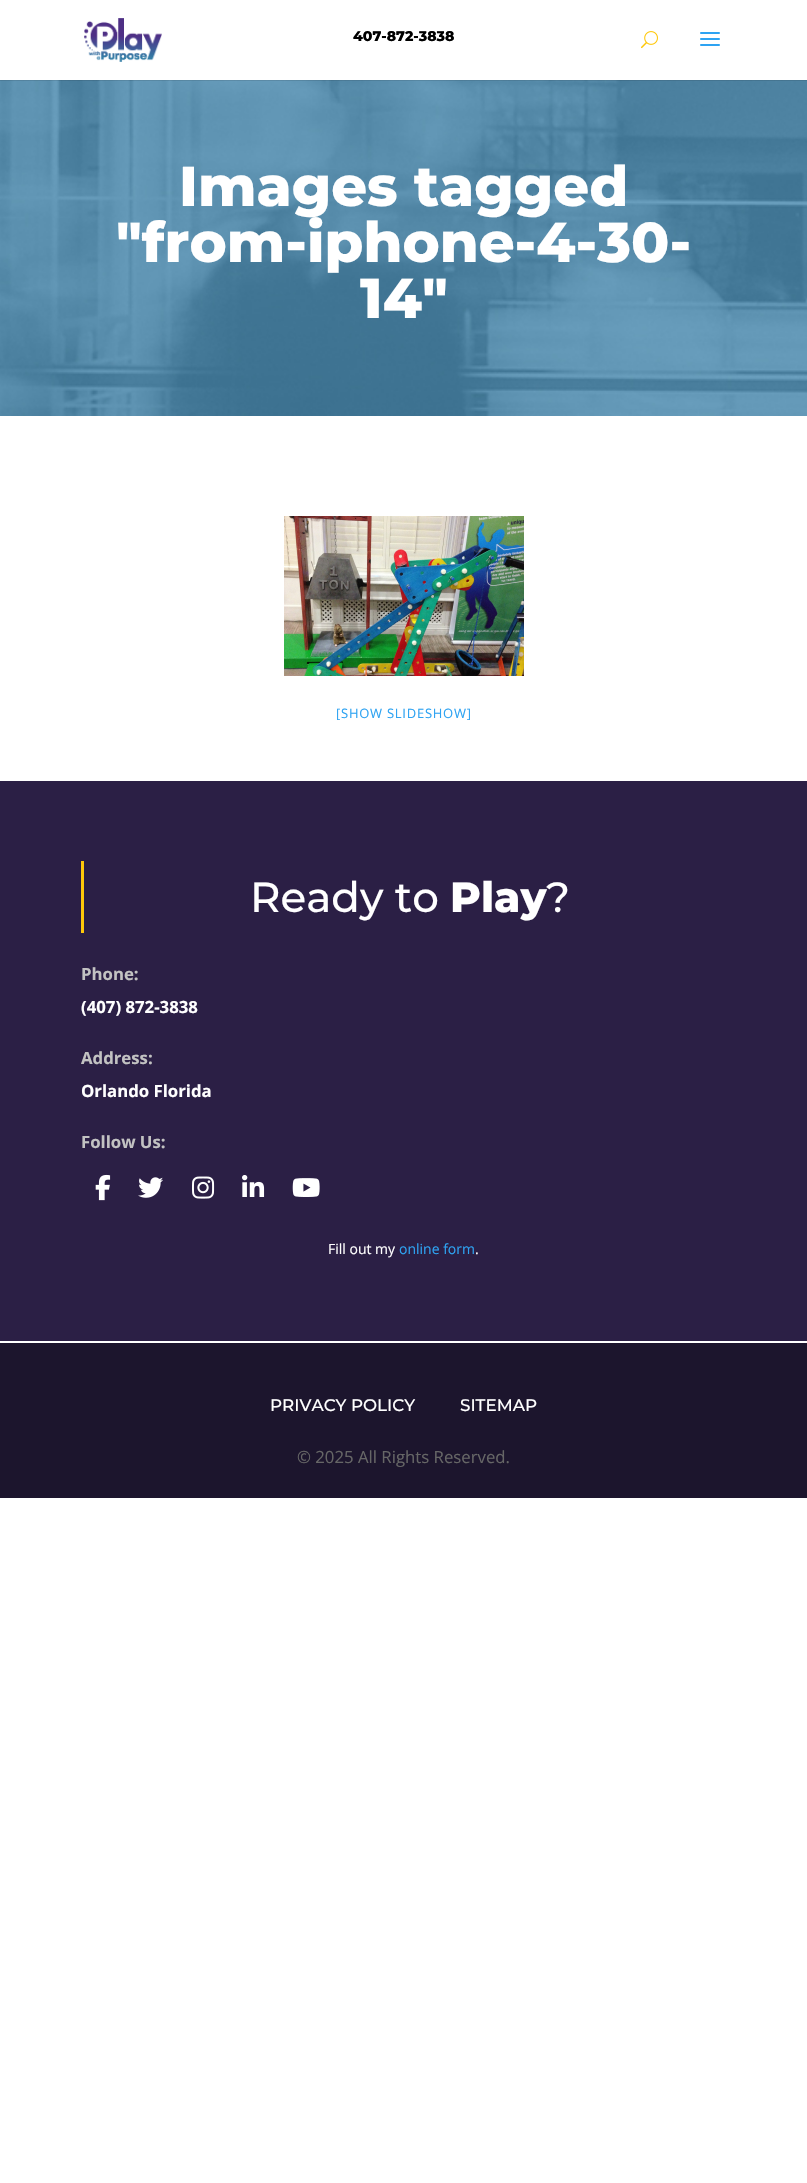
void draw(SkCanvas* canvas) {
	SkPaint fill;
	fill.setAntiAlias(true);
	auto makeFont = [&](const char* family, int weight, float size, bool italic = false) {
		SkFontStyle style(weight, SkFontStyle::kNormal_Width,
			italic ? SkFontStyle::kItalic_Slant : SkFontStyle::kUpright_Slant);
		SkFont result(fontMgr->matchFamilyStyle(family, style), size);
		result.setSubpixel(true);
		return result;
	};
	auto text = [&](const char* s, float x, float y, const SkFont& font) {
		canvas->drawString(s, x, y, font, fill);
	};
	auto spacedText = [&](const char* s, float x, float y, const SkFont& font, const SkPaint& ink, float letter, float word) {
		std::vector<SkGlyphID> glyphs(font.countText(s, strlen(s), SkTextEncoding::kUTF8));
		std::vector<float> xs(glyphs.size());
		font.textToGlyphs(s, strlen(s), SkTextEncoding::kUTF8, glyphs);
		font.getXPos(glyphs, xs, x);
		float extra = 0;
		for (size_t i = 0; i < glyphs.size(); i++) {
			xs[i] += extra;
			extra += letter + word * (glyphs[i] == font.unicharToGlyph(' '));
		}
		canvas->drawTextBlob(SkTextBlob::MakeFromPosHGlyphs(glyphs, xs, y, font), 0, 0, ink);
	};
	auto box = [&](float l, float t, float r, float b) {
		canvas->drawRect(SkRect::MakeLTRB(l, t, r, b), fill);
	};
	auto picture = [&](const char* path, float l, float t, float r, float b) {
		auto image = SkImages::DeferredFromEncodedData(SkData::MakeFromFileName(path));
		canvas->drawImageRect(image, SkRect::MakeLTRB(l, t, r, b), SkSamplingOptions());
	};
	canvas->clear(0xFFFFFFFF);
	picture("image3.png", 0, 80, 807, 416);
	fill.setColor(0x1A000000);
	box(0, 80, 807, 81);
	picture("image0.png", 84, 18, 162, 62);
	picture("image1.png", 641, 31, 658, 49);
	picture("image2.png", 700, 32, 720, 46);
	picture("image4.png", 284, 516, 524, 676);
	fill.setColor(0xFF2B1F45);
	box(0, 781, 807, 1341);
	fill.setColor(0xFFFFC80A);
	box(81, 861, 84, 933);
	picture("image5.png", 95, 1174, 111, 1201);
	picture("image6.png", 138, 1177, 163, 1198);
	picture("image7.png", 192, 1176, 215, 1199);
	picture("image8.png", 242, 1175, 265, 1197);
	picture("image9.png", 292, 1178, 320, 1197);
	fill.setColor(0xFF1C152D);
	box(0, 1343, 807, 1498);
	auto font1 = makeFont("Montserrat", 800, 14);
	fill.setColor(0xFF000000);
	text("407-872-3838", 353, 41, font1);
	auto font2 = makeFont("Montserrat", 800, 56);
	fill.setColor(0xFFFFFFFF);
	text("Images tagged", 179, 206, font2);
	text("\"from-iphone-4-30-", 116, 262, font2);
	text("14\"", 360, 318, font2);
	auto font3 = makeFont("Open Sans", 400, 13);
	fill.setColor(0xFF2EA3F2);
	spacedText("[SHOW SLIDESHOW]", 336, 718, font3, fill, 0.75f, 0);
	auto font4 = makeFont("Montserrat", 500, 42);
	fill.setColor(0xFFFFFFFF);
	text("Ready to", 250, 912, font4);
	auto font5 = makeFont("Montserrat", 800, 42);
	text("Play", 450, 912, font5);
	text("?", 546, 912, font4);
	auto font6 = makeFont("Open Sans", 700, 16.75f);
	fill.setColor(0xFFC2C2C2);
	text("Phone:", 81, 980, font6);
	fill.setColor(0xFFFFFFFF);
	text("(407) 872-3838", 81, 1013, font6);
	fill.setColor(0xFFC2C2C2);
	text("Address:", 81, 1064, font6);
	fill.setColor(0xFFFFFFFF);
	text("Orlando Florida", 81, 1097, font6);
	fill.setColor(0xFFC2C2C2);
	text("Follow Us:", 81, 1148, font6);
	auto font7 = makeFont("Open Sans", 400, 14);
	fill.setColor(0xFFFFFFFF);
	text("Fill out my", 328, 1254, font7);
	fill.setColor(0xFF2EA3F2);
	text("online form", 399, 1254, font7);
	fill.setColor(0xFFFFFFFF);
	text(".", 475, 1254, font7);
	auto font8 = makeFont("Montserrat", 500, 16.75f);
	text("PRIVACY POLICY", 270, 1411, font8);
	text("SITEMAP", 460, 1411, font8);
	auto font9 = makeFont("Open Sans", 400, 16.75f);
	fill.setColor(0xFF666666);
	text("© 2025 All Rights Reserved.", 297, 1463, font9);
}
